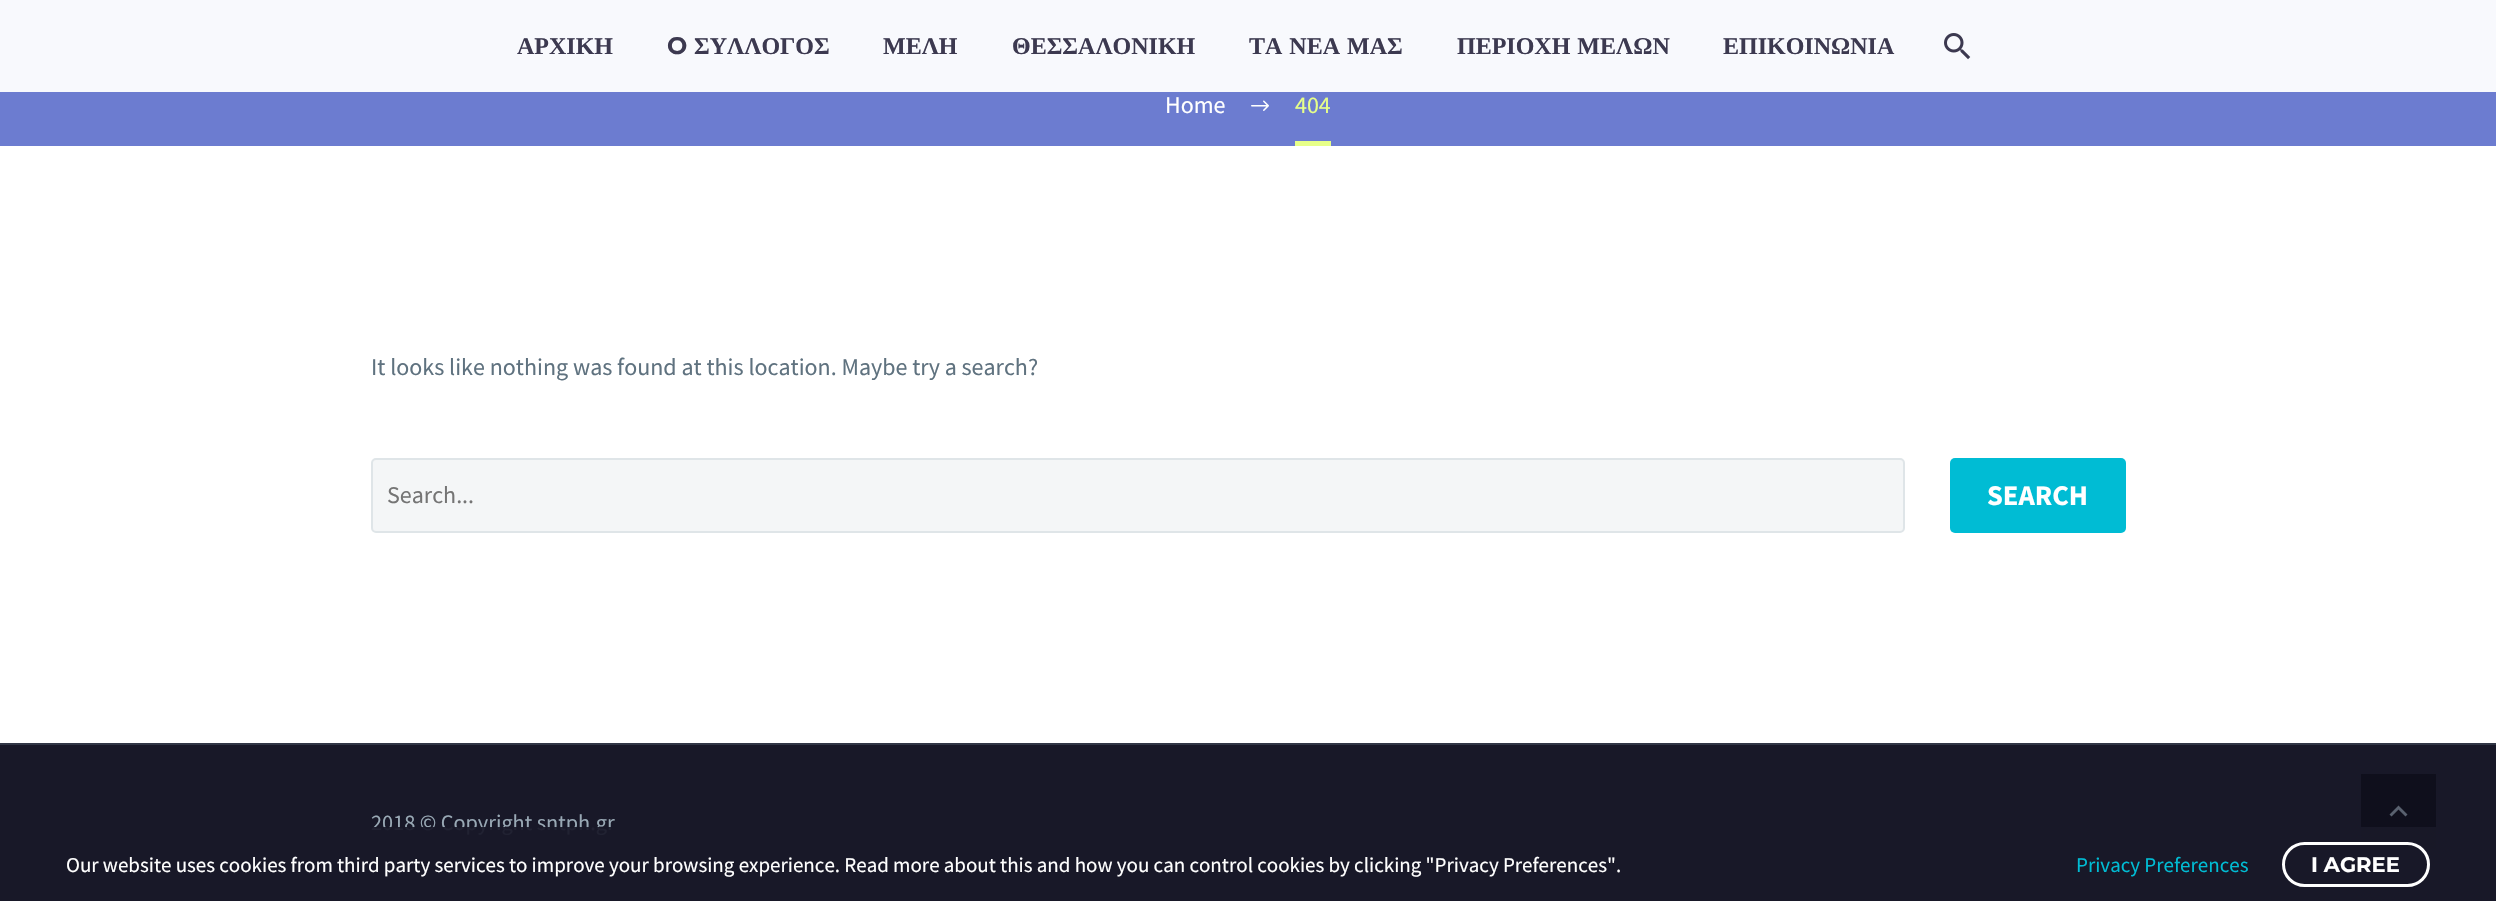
void draw(SkCanvas* canvas) {
	SkPaint fill;
	fill.setAntiAlias(true);
	auto makeFont = [&](const char* family, int weight, float size, bool italic = false) {
		SkFontStyle style(weight, SkFontStyle::kNormal_Width,
			italic ? SkFontStyle::kItalic_Slant : SkFontStyle::kUpright_Slant);
		SkFont result(fontMgr->matchFamilyStyle(family, style), size);
		result.setSubpixel(true);
		return result;
	};
	auto text = [&](const char* s, float x, float y, const SkFont& font) {
		canvas->drawString(s, x, y, font, fill);
	};
	auto spacedText = [&](const char* s, float x, float y, const SkFont& font, const SkPaint& ink, float letter, float word) {
		std::vector<SkGlyphID> glyphs(font.countText(s, strlen(s), SkTextEncoding::kUTF8));
		std::vector<float> xs(glyphs.size());
		font.textToGlyphs(s, strlen(s), SkTextEncoding::kUTF8, glyphs);
		font.getXPos(glyphs, xs, x);
		float extra = 0;
		for (size_t i = 0; i < glyphs.size(); i++) {
			xs[i] += extra;
			extra += letter + word * (glyphs[i] == font.unicharToGlyph(' '));
		}
		canvas->drawTextBlob(SkTextBlob::MakeFromPosHGlyphs(glyphs, xs, y, font), 0, 0, ink);
	};
	auto box = [&](float l, float t, float r, float b) {
		canvas->drawRect(SkRect::MakeLTRB(l, t, r, b), fill);
	};
	auto roundBox = [&](float l, float t, float r, float b, float radius) {
		canvas->drawRoundRect(SkRect::MakeLTRB(l, t, r, b), radius, radius, fill);
	};
	auto picture = [&](const char* path, float l, float t, float r, float b) {
		auto image = SkImages::DeferredFromEncodedData(SkData::MakeFromFileName(path));
		canvas->drawImageRect(image, SkRect::MakeLTRB(l, t, r, b), SkSamplingOptions());
	};
	canvas->clear(0xFF181828);
	fill.setColor(0xFF6C7CD0);
	box(0, 0, 2496, 146);
	fill.setColor(0xF2FFFFFF);
	box(0, 0, 2496, 92);
	picture("image0.png", 1944, 33, 1971, 60);
	picture("image1.png", 1251, 100, 1269, 111);
	fill.setColor(0xFFE7FF89);
	box(1295, 141, 1331, 146);
	fill.setColor(0xFFFFFFFF);
	box(0, 146, 2496, 743);
	fill.setColor(0xFFF4F6F7);
	canvas->drawRoundRect(SkRect::MakeLTRB(372, 459, 1904, 532), 4, 4, fill);
	fill.setStyle(SkPaint::kStroke_Style);
	fill.setStrokeWidth(2);
	fill.setColor(0xFFDFE5E8);
	canvas->drawRoundRect(SkRect::MakeLTRB(372, 459, 1904, 532), 4, 4, fill);
	fill.setStyle(SkPaint::kFill_Style);
	fill.setColor(0xFF00BCD4);
	roundBox(1950, 458, 2126, 533, 5);
	fill.setColor(0xFF313646);
	box(0, 743, 2496, 745);
	fill.setColor(0xFF0F0F1C);
	box(2361, 774, 2436, 849);
	fill.setColor(0xFF59616F);
	canvas->drawPath(SkPathBuilder().moveTo(2391.5f, 816.5f).lineTo(2398.5f, 809.5f).lineTo(2405.5f, 816.5f).lineTo(2407.5f, 814.5f).lineTo(2398.5f, 805.5f).lineTo(2389.5f, 814.5f).close().detach(), fill);
	auto font1 = makeFont("Liberation Serif", 700, 24);
	fill.setColor(0xFF3C3950);
	text("ΑΡΧΙΚΗ", 517, 54, font1);
	auto font2 = makeFont("Montserrat", 700, 24);
	text("O", 667, 54, font2);
	text("ΣΥΛΛΟΓΟΣ", 694, 54, font1);
	text("ΜΕΛΗ", 883, 54, font1);
	text("ΘΕΣΣΑΛΟΝΙΚΗ", 1012, 54, font1);
	spacedText("ΤΑ ΝΕΑ ΜΑΣ", 1249, 54, font1, fill, 0, 1);
	spacedText("ΠΕΡΙΟΧΗ ΜΕΛΩΝ", 1457, 54, font1, fill, 0, 1);
	text("ΕΠΙΚΟΙΝΩΝΙΑ", 1723, 54, font1);
	auto font3 = makeFont("Source Sans Pro", 400, 24);
	fill.setColor(0xFFFFFFFF);
	text("Home", 1165, 113, font3);
	fill.setColor(0xFFE7FF89);
	text("404", 1295, 113, font3);
	fill.setColor(0xFF5F727F);
	text("It looks like nothing was found at this location. Maybe try a search?", 371, 375, font3);
	fill.setColor(0xFF757575);
	text("Search...", 387, 503, font3);
	auto font4 = makeFont("Source Sans Pro", 700, 28.5f);
	fill.setColor(0xFFFFFFFF);
	text("SEARCH", 1987, 505, font4);
	auto font5 = makeFont("Source Sans Pro", 400, 22.25f);
	fill.setColor(0xFF99A9B5);
	text("2018 © Copyright sntph.gr", 371, 830, font5);
	fill.setColor(0xED181828);
	box(371, 827, 2436, 849);
	auto font6 = makeFont("Source Sans Pro", 400, 21);
	fill.setColor(0xFFFFFFFF);
	text("Our website uses cookies from third party services to improve your browsing experience. Read more about this and how you can control cookies by clicking \"Privacy Preferences\".", 66, 872, font6);
	fill.setColor(0xFF00BCD4);
	text("Privacy Preferences", 2076, 872, font6);
	fill.setStyle(SkPaint::kStroke_Style);
	fill.setStrokeWidth(3);
	fill.setColor(0xFFFFFFFF);
	canvas->drawRoundRect(SkRect::MakeLTRB(2283.5f, 843.5f, 2428.5f, 885.5f), 21, 21, fill);
	auto font7 = makeFont("Montserrat", 700, 21);
	fill.setStyle(SkPaint::kFill_Style);
	text("I AGREE", 2311, 872, font7);
}
